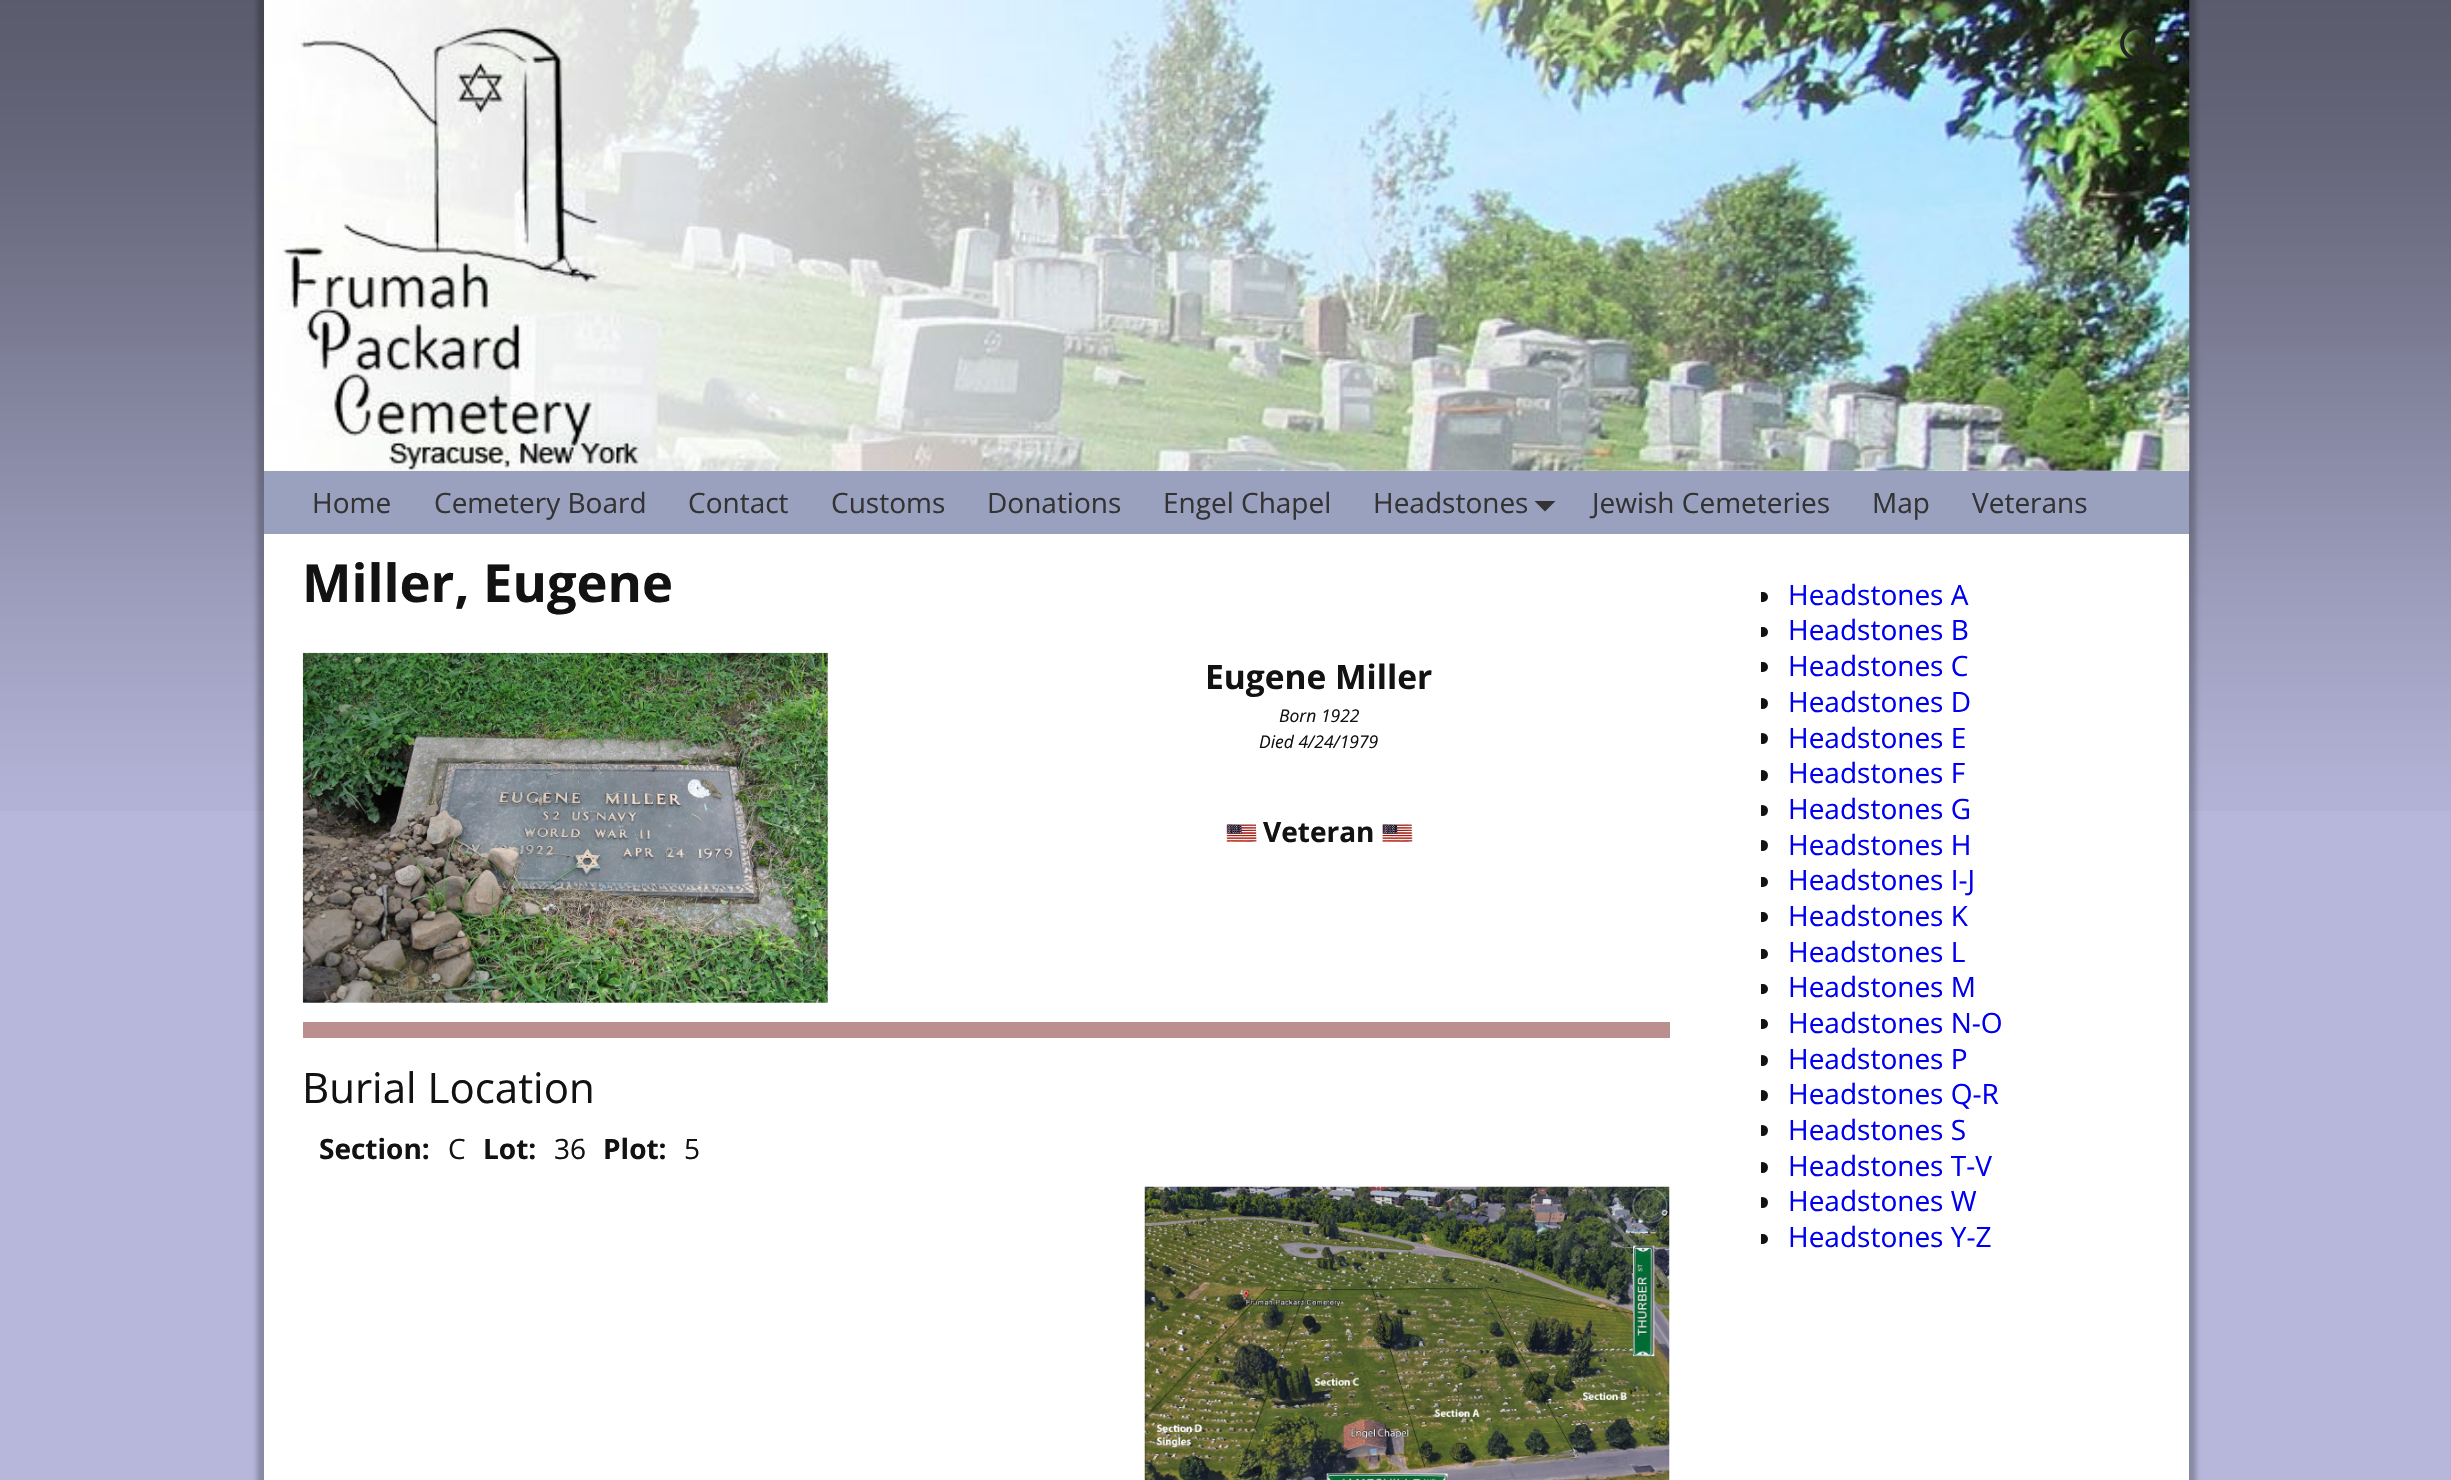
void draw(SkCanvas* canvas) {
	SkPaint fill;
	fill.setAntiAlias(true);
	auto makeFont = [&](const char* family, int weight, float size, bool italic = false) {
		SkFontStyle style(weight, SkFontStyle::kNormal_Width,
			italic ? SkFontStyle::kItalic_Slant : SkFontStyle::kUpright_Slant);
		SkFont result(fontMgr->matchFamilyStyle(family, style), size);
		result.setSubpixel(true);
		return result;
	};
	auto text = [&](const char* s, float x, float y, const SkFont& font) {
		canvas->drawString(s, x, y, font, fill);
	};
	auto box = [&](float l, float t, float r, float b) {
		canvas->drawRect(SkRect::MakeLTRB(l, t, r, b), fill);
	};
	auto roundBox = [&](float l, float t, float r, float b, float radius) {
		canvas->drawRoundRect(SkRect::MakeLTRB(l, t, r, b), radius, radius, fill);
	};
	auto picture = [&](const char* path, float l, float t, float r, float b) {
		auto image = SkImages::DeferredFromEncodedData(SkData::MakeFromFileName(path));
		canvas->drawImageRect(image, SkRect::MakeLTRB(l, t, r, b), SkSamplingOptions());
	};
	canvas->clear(0xFFB6B7DB);
	picture("image0.png", 0, 0, 2451, 811);
	fill.setColor(0x40000000);
	fill.setMaskFilter(SkMaskFilter::MakeBlur(kNormal_SkBlurStyle, 2.5f));
	canvas->drawRect(SkRect::MakeLTRB(257, -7, 2196, 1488), fill);
	fill.setMaskFilter(nullptr);
	fill.setColor(0xFFFFFFFF);
	box(264, 534, 2189, 1480);
	fill.setColor(0xFFF0F0F0);
	box(264, 0, 2189, 471);
	picture("image1.png", 264, 0, 2190, 471);
	picture("image2.png", 2120, 25, 2167, 73);
	fill.setColor(0xFF9AA1BF);
	box(264, 471, 2189, 534);
	fill.setColor(0xFF333333);
	canvas->drawPath(SkPathBuilder().moveTo(1534.5f, 501).lineTo(1555.5f, 501).lineTo(1545, 511.5f).close().detach(), fill);
	picture("image3.png", 302, 652, 828, 1003);
	picture("image4.png", 1226, 824, 1257, 842);
	picture("image5.png", 1382, 824, 1413, 842);
	fill.setColor(0xFFBC8F8F);
	box(303, 1022, 1670, 1038);
	picture("image6.png", 1144, 1186, 1670, 1480);
	canvas->save();
	canvas->clipRect(SkRect::MakeLTRB(1761, 578, 2175, 1255));
	fill.setColor(0xFF121212);
	roundBox(1757, 592, 1768, 602, 5);
	roundBox(1757, 627, 1768, 637, 5);
	roundBox(1757, 662, 1768, 672, 5);
	canvas->drawCircle(1762.5f, 703.5f, 5.5f, fill);
	canvas->drawCircle(1762.5f, 738.5f, 5.5f, fill);
	canvas->drawCircle(1762.5f, 775.5f, 5.5f, fill);
	canvas->drawCircle(1762.5f, 810.5f, 5.5f, fill);
	canvas->drawCircle(1762.5f, 845.5f, 5.5f, fill);
	roundBox(1757, 877, 1768, 887, 5);
	roundBox(1757, 912, 1768, 922, 5);
	roundBox(1757, 949, 1768, 959, 5);
	roundBox(1757, 984, 1768, 994, 5);
	roundBox(1757, 1019, 1768, 1029, 5);
	canvas->drawCircle(1762.5f, 1060.5f, 5.5f, fill);
	canvas->drawCircle(1762.5f, 1095.5f, 5.5f, fill);
	canvas->drawCircle(1762.5f, 1130.5f, 5.5f, fill);
	canvas->drawCircle(1762.5f, 1167.5f, 5.5f, fill);
	canvas->drawCircle(1762.5f, 1202.5f, 5.5f, fill);
	roundBox(1757, 1234, 1768, 1244, 5);
	canvas->restore();
	auto font1 = makeFont("Open Sans", 400, 28);
	fill.setColor(0xFF333333);
	text("Home", 312, 513, font1);
	text("Cemetery Board", 434, 513, font1);
	text("Contact", 688, 513, font1);
	text("Customs", 831, 513, font1);
	text("Donations", 987, 513, font1);
	text("Engel Chapel", 1163, 513, font1);
	text("Headstones", 1373, 513, font1);
	text("Jewish Cemeteries", 1592, 513, font1);
	text("Map", 1872, 513, font1);
	text("Veterans", 1972, 513, font1);
	auto font2 = makeFont("Open Sans", 700, 52.5f);
	fill.setColor(0xFF121212);
	text("Miller, Eugene", 302, 602, font2);
	auto font3 = makeFont("Open Sans", 700, 33.5f);
	text("Eugene Miller", 1205, 689, font3);
	auto font4 = makeFont("Open Sans", 400, 17.5f, true);
	text("Born 1922", 1279, 722, font4);
	text("Died 4/24/1979", 1259, 748, font4);
	auto font5 = makeFont("Open Sans", 700, 28);
	text("Veteran", 1263, 842, font5);
	auto font6 = makeFont("Open Sans", 400, 42);
	text("Burial Location", 302, 1103, font6);
	text("Section:", 319, 1159, font5);
	text("C", 448, 1159, font1);
	text("Lot:", 483, 1159, font5);
	text("36", 554, 1159, font1);
	text("Plot:", 603, 1159, font5);
	text("5", 684, 1159, font1);
	fill.setColor(0xFF0000EE);
	text("Headstones A", 1788, 605, font1);
	text("Headstones B", 1788, 640, font1);
	text("Headstones C", 1788, 676, font1);
	text("Headstones D", 1788, 712, font1);
	text("Headstones E", 1788, 748, font1);
	text("Headstones F", 1788, 783, font1);
	text("Headstones G", 1788, 819, font1);
	text("Headstones H", 1788, 855, font1);
	text("Headstones I-J", 1788, 890, font1);
	text("Headstones K", 1788, 926, font1);
	text("Headstones L", 1788, 962, font1);
	text("Headstones M", 1788, 997, font1);
	text("Headstones N-O", 1788, 1033, font1);
	text("Headstones P", 1788, 1069, font1);
	text("Headstones Q-R", 1788, 1104, font1);
	text("Headstones S", 1788, 1140, font1);
	text("Headstones T-V", 1788, 1176, font1);
	text("Headstones W", 1788, 1211, font1);
	text("Headstones Y-Z", 1788, 1247, font1);
}
